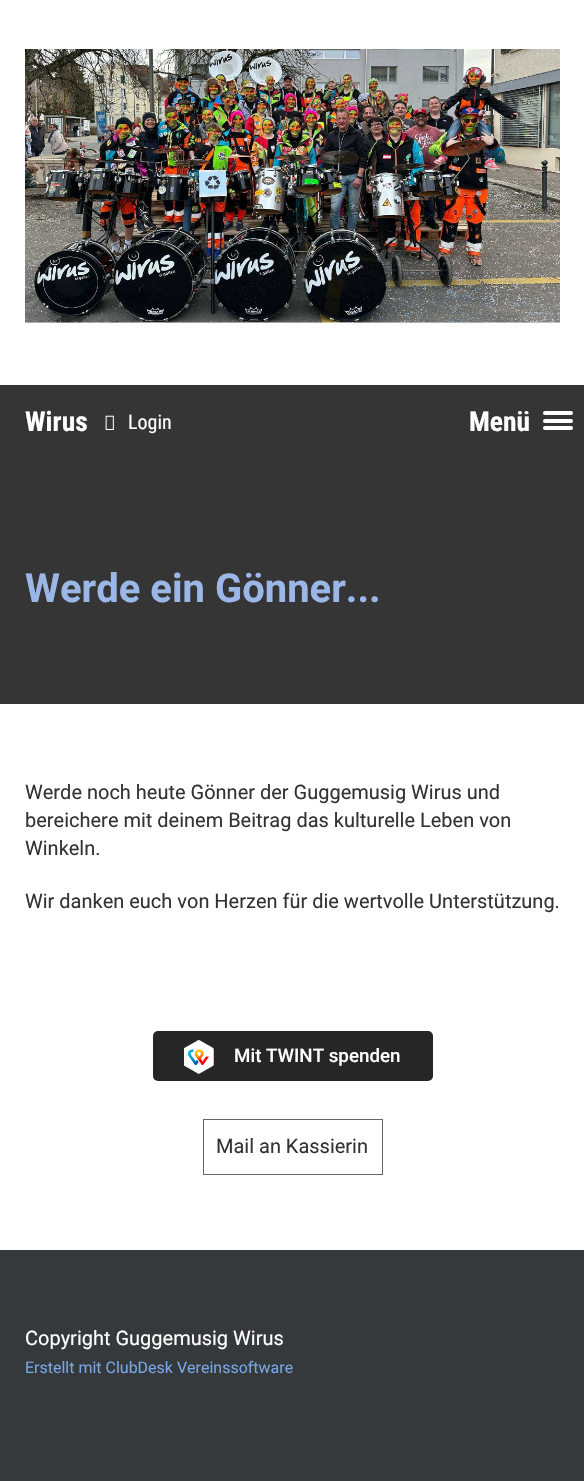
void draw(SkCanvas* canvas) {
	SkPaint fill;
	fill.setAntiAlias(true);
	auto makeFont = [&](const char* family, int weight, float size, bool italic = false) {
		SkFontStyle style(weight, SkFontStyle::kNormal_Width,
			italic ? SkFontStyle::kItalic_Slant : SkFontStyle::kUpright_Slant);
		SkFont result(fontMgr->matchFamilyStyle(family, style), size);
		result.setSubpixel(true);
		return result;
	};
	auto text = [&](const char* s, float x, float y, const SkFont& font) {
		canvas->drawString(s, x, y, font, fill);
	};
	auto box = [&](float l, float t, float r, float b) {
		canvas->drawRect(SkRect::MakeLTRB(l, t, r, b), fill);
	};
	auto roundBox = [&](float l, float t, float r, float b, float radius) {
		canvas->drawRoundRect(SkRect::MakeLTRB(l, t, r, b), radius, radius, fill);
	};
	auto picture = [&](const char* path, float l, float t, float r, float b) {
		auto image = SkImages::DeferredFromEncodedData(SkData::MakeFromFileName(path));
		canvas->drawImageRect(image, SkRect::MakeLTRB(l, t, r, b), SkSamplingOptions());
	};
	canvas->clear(0xFFFFFFFF);
	picture("image0.png", 25, 49, 560, 323);
	fill.setColor(0xFF353535);
	box(0, 385, 584, 704);
	picture("image1.png", 105, 415, 114, 430);
	fill.setColor(0xFFFFFFFF);
	roundBox(543, 411, 573, 415, 2);
	roundBox(543, 419, 573, 423, 2);
	roundBox(543, 426, 573, 430, 2);
	fill.setColor(0xFF262626);
	roundBox(153, 1031, 433, 1081, 5);
	picture("image2.png", 184, 1040, 214, 1074);
	fill.setStyle(SkPaint::kStroke_Style);
	fill.setStrokeWidth(1);
	fill.setColor(0xFF666666);
	canvas->drawRect(SkRect::MakeLTRB(203.5f, 1119.5f, 382.5f, 1174.5f), fill);
	fill.setStyle(SkPaint::kFill_Style);
	fill.setColor(0xFF36393B);
	box(0, 1250, 584, 1481);
	auto font1 = makeFont("Roboto Condensed", 700, 27.5f);
	fill.setColor(0xFFFFFFFF);
	text("Wirus", 25, 431, font1);
	auto font2 = makeFont("Roboto Condensed", 400, 20);
	text("Login", 128, 429, font2);
	text("Menü", 469, 431, font1);
	auto font3 = makeFont("Roboto", 700, 40);
	fill.setColor(0xFF9BB7E7);
	text("Werde ein Gönner...", 25, 602, font3);
	auto font4 = makeFont("Roboto", 400, 20);
	fill.setColor(0xFF333333);
	text("Werde noch heute Gönner der Guggemusig Wirus und", 25, 799, font4);
	text("bereichere mit deinem Beitrag das kulturelle Leben von", 25, 827, font4);
	text("Winkeln.", 25, 855, font4);
	text("Wir danken euch von Herzen für die wertvolle Unterstützung.", 25, 908, font4);
	auto font5 = makeFont("Roboto", 500, 18.75f);
	fill.setColor(0xFFFFFFFF);
	text("Mit TWINT spenden", 234, 1062, font5);
	fill.setColor(0xFF333333);
	text("Mail an Kassierin", 216, 1153, font4);
	fill.setColor(0xFFFFFFFF);
	text("Copyright Guggemusig Wirus", 25, 1345, font4);
	auto font6 = makeFont("Roboto", 400, 16);
	fill.setColor(0xFF77A6E5);
	text("Erstellt mit ClubDesk Vereinssoftware", 25, 1373, font6);
}
